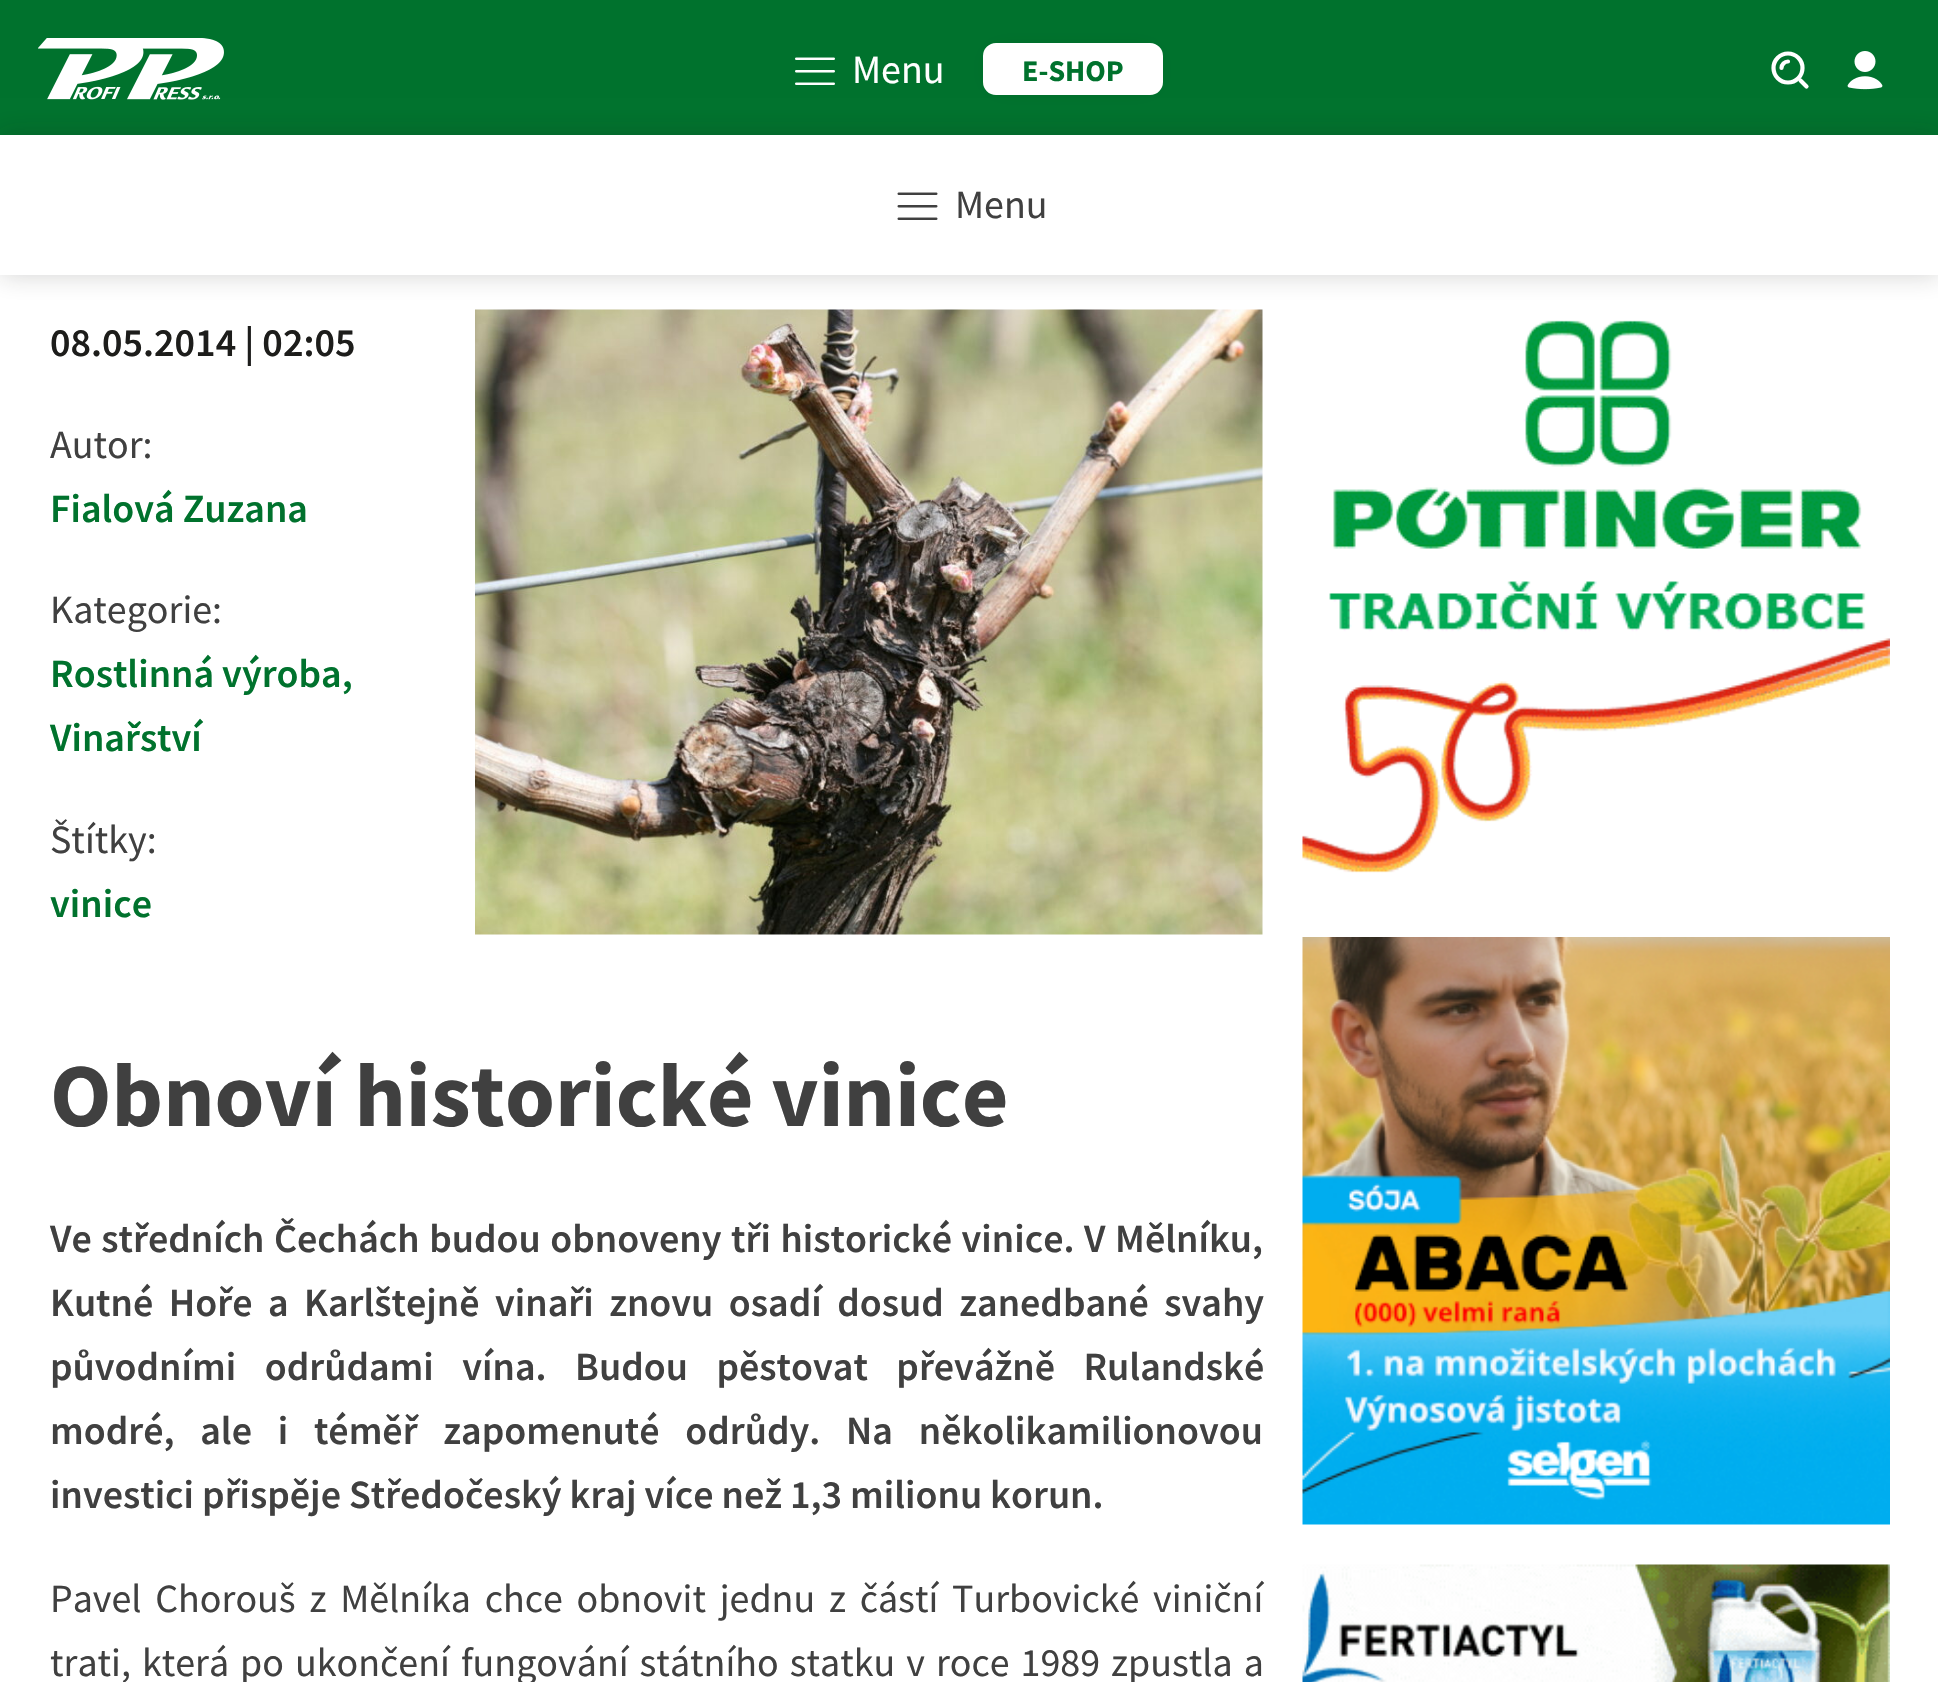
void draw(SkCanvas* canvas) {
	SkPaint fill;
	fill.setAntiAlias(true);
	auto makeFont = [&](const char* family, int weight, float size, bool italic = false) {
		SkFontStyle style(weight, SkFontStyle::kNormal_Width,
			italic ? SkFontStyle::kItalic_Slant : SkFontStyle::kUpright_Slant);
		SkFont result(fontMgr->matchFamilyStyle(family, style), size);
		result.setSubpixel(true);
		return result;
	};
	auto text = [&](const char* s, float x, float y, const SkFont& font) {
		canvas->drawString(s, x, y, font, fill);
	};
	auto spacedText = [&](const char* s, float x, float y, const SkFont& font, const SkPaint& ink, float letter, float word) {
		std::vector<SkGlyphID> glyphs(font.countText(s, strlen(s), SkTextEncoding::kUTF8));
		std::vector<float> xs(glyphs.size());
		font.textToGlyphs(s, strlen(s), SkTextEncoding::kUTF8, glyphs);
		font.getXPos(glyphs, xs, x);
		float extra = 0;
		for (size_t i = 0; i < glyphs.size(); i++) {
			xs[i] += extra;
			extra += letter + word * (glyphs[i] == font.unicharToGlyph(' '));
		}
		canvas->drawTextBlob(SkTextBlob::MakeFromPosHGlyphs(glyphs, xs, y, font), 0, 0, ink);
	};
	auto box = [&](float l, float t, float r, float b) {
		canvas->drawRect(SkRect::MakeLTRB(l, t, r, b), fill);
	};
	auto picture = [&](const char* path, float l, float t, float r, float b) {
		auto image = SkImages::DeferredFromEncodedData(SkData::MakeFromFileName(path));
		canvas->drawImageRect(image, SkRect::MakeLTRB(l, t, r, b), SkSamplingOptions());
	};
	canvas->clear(0xFFFFFFFF);
	fill.setColor(0xFF00722D);
	box(0, 0, 1938, 135);
	picture("image0.png", 38, 38, 224, 100);
	picture("image1.png", 795, 57, 835, 85);
	fill.setColor(0x26000000);
	fill.setMaskFilter(SkMaskFilter::MakeBlur(kNormal_SkBlurStyle, 12.5f));
	canvas->drawRect(SkRect::MakeLTRB(995, 55, 1150, 83), fill);
	fill.setMaskFilter(nullptr);
	fill.setColor(0xFFFFFFFF);
	canvas->drawRoundRect(SkRect::MakeLTRB(984.5f, 44.5f, 1161.5f, 93.5f), 11.5f, 11.5f, fill);
	fill.setStyle(SkPaint::kStroke_Style);
	fill.setStrokeWidth(3);
	canvas->drawRoundRect(SkRect::MakeLTRB(984.5f, 44.5f, 1161.5f, 93.5f), 11.5f, 11.5f, fill);
	fill.setStrokeWidth(4.2f);
	canvas->drawCircle(1788, 68, 14.5f, fill);
	fill.setStrokeCap(SkPaint::kRound_Cap);
	canvas->drawPath(SkPathBuilder().moveTo(1788, 61.5f).cubicTo(1784.5f, 61.5f, 1781.5f, 64.5f, 1781.5f, 68).moveTo(1806.5f, 86.5f).lineTo(1800.5f, 80.5f).detach(), fill);
	picture("image2.png", 1847, 51, 1883, 90);
	picture("image4.png", 475, 309, 1263, 935);
	fill.setStyle(SkPaint::kFill_Style);
	fill.setColor(0x331D1D1B);
	fill.setMaskFilter(SkMaskFilter::MakeBlur(kNormal_SkBlurStyle, 12.5f));
	canvas->drawRect(SkRect::MakeLTRB(0, 135, 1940, 275), fill);
	fill.setMaskFilter(nullptr);
	fill.setColor(0xFFFFFFFF);
	box(0, 135, 1938, 275);
	picture("image3.png", 897, 192, 938, 220);
	picture("image5.png", 1302, 320, 1890, 873);
	picture("image6.png", 1302, 937, 1890, 1525);
	picture("image7.png", 1302, 1564, 1890, 1682);
	auto font1 = makeFont("Source Sans Pro", 400, 40);
	text("Menu", 852, 83, font1);
	auto font2 = makeFont("Source Sans Pro", 700, 30);
	fill.setColor(0xFF00722D);
	text("E-SHOP", 1022, 81, font2);
	fill.setColor(0xFF404040);
	text("Menu", 955, 218, font1);
	auto font3 = makeFont("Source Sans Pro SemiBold", 600, 40);
	fill.setColor(0xFF1D1D1B);
	text("08.05.2014 | 02:05", 50, 356, font3);
	fill.setColor(0xFF404040);
	text("Autor:", 50, 458, font1);
	fill.setColor(0xFF00722D);
	text("Fialová Zuzana", 50, 522, font3);
	fill.setColor(0xFF404040);
	text("Kategorie:", 50, 623, font1);
	fill.setColor(0xFF00722D);
	text("Rostlinná výroba,", 50, 687, font3);
	text("Vinařství", 50, 751, font3);
	fill.setColor(0xFF404040);
	text("Štítky:", 50, 853, font1);
	fill.setColor(0xFF00722D);
	text("vinice", 50, 917, font3);
	auto font4 = makeFont("Source Sans Pro", 700, 90);
	fill.setColor(0xFF404040);
	text("Obnoví historické vinice", 50, 1126, font4);
	spacedText("Ve středních Čechách budou obnoveny tři historické vinice. V Mělníku,", 50, 1252, font3, fill, 0, 1.6f);
	spacedText("Kutné Hoře a Karlštejně vinaři znovu osadí dosud zanedbané svahy", 50, 1316, font3, fill, 0, 7.5f);
	spacedText("původními odrůdami vína. Budou pěstovat převážně Rulandské", 50, 1380, font3, fill, 0, 20.5f);
	spacedText("modré, ale i téměř zapomenuté odrůdy. Na několikamilionovou", 50, 1444, font3, fill, 0, 17.75f);
	text("investici přispěje Středočeský kraj více než 1,3 milionu korun.", 50, 1508, font3);
	spacedText("Pavel Chorouš z Mělníka chce obnovit jednu z částí Turbovické viniční", 50, 1612, font1, fill, 0, 5.75f);
	spacedText("trati, která po ukončení fungování státního statku v roce 1989 zpustla a", 50, 1676, font1, fill, 0, 3);
}
